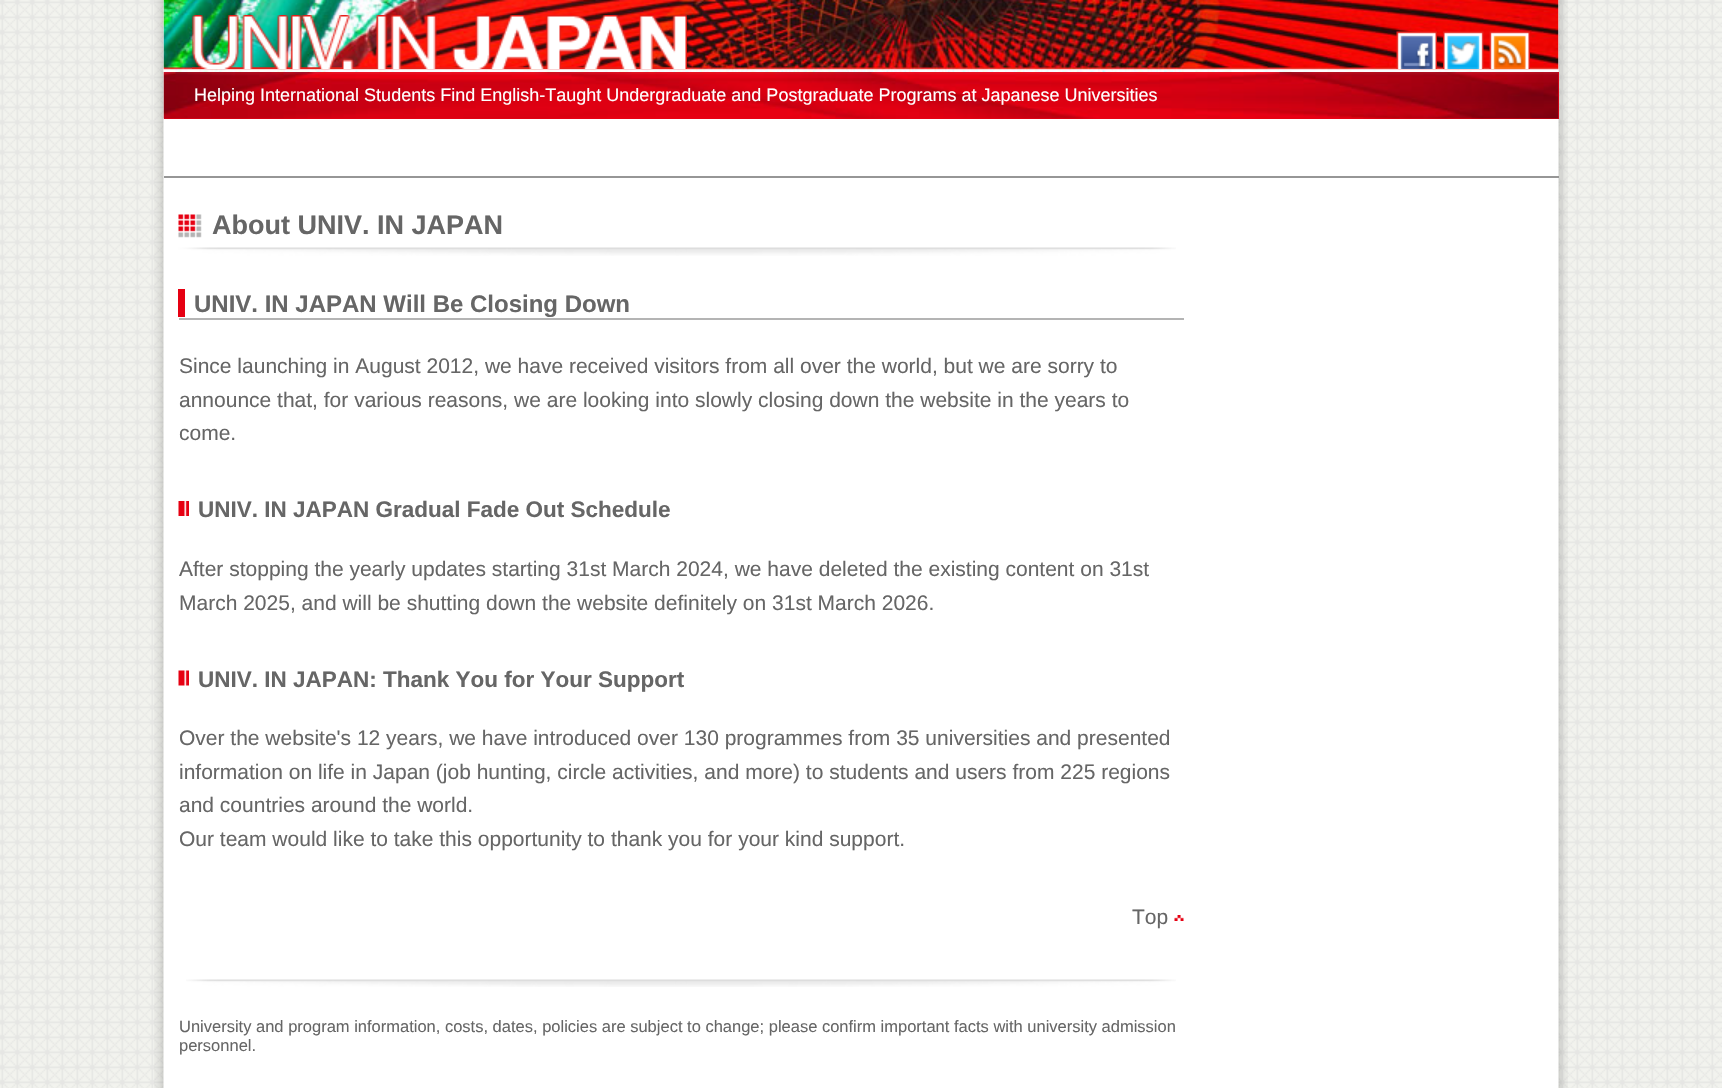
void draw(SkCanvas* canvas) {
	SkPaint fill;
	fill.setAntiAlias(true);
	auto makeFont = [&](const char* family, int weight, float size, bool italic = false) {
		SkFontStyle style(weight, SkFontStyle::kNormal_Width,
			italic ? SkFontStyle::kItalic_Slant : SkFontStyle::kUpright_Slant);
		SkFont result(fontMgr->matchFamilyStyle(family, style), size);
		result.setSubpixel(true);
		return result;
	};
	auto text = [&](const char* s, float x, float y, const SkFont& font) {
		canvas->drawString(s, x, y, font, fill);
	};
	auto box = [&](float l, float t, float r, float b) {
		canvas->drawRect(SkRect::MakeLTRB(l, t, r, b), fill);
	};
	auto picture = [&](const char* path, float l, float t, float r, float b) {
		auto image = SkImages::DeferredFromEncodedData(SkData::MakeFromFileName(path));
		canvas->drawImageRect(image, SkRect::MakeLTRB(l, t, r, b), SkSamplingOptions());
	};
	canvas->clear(0xFFFFFFFF);
	picture("image0.png", 0, 0, 1722, 1088);
	picture("image1.png", 154, 0, 1568, 1088);
	fill.setColor(0xFF969696);
	box(164, 176, 1559, 178);
	picture("image2.png", 163, 0, 1559, 72);
	picture("image3.png", 192, 15, 687, 69);
	picture("image4.png", 1396, 31, 1437, 69);
	picture("image5.png", 1443, 31, 1484, 69);
	picture("image6.png", 1489, 31, 1530, 69);
	fill.setColor(0xFFE60315);
	box(164, 72, 1559, 119);
	picture("image7.png", 163, 72, 1559, 119);
	picture("image8.png", 178, 214, 1176, 256);
	fill.setColor(0xFFE60012);
	box(178, 289, 185, 317);
	fill.setColor(0xFFB4B4B4);
	box(179, 318, 1184, 320);
	picture("image9.png", 178, 501, 189, 516);
	picture("image10.png", 178, 670, 189, 686);
	picture("image11.png", 1174, 915, 1184, 921);
	picture("image12.png", 186, 979, 1176, 987);
	auto font1 = makeFont("Liberation Sans", 400, 18);
	fill.setColor(0xFFFFFFFF);
	text("Helping International Students Find English-Taught Undergraduate and Postgraduate Programs at Japanese Universities", 194, 101, font1);
	auto font2 = makeFont("Liberation Sans", 700, 27);
	fill.setColor(0xFF666666);
	text("About UNIV. IN JAPAN", 212, 234, font2);
	auto font3 = makeFont("Liberation Sans", 700, 24);
	text("UNIV. IN JAPAN Will Be Closing Down", 194, 312, font3);
	auto font4 = makeFont("Liberation Sans", 400, 21);
	text("Since launching in August 2012, we have received visitors from all over the world, but we are sorry to", 179, 373, font4);
	text("announce that, for various reasons, we are looking into slowly closing down the website in the years to", 179, 407, font4);
	text("come.", 179, 440, font4);
	auto font5 = makeFont("Liberation Sans", 700, 22.5f);
	text("UNIV. IN JAPAN Gradual Fade Out Schedule", 198, 517, font5);
	text("After stopping the yearly updates starting 31st March 2024, we have deleted the existing content on 31st", 179, 576, font4);
	text("March 2025, and will be shutting down the website definitely on 31st March 2026.", 179, 610, font4);
	text("UNIV. IN JAPAN: Thank You for Your Support", 198, 687, font5);
	text("Over the website's 12 years, we have introduced over 130 programmes from 35 universities and presented", 179, 745, font4);
	text("information on life in Japan (job hunting, circle activities, and more) to students and users from 225 regions", 179, 779, font4);
	text("and countries around the world.", 179, 812, font4);
	text("Our team would like to take this opportunity to thank you for your kind support.", 179, 846, font4);
	text("Top", 1132, 924, font4);
	auto font6 = makeFont("Liberation Sans", 400, 16.5f);
	text("University and program information, costs, dates, policies are subject to change; please confirm important facts with university admission", 179, 1032, font6);
	text("personnel.", 179, 1051, font6);
}
